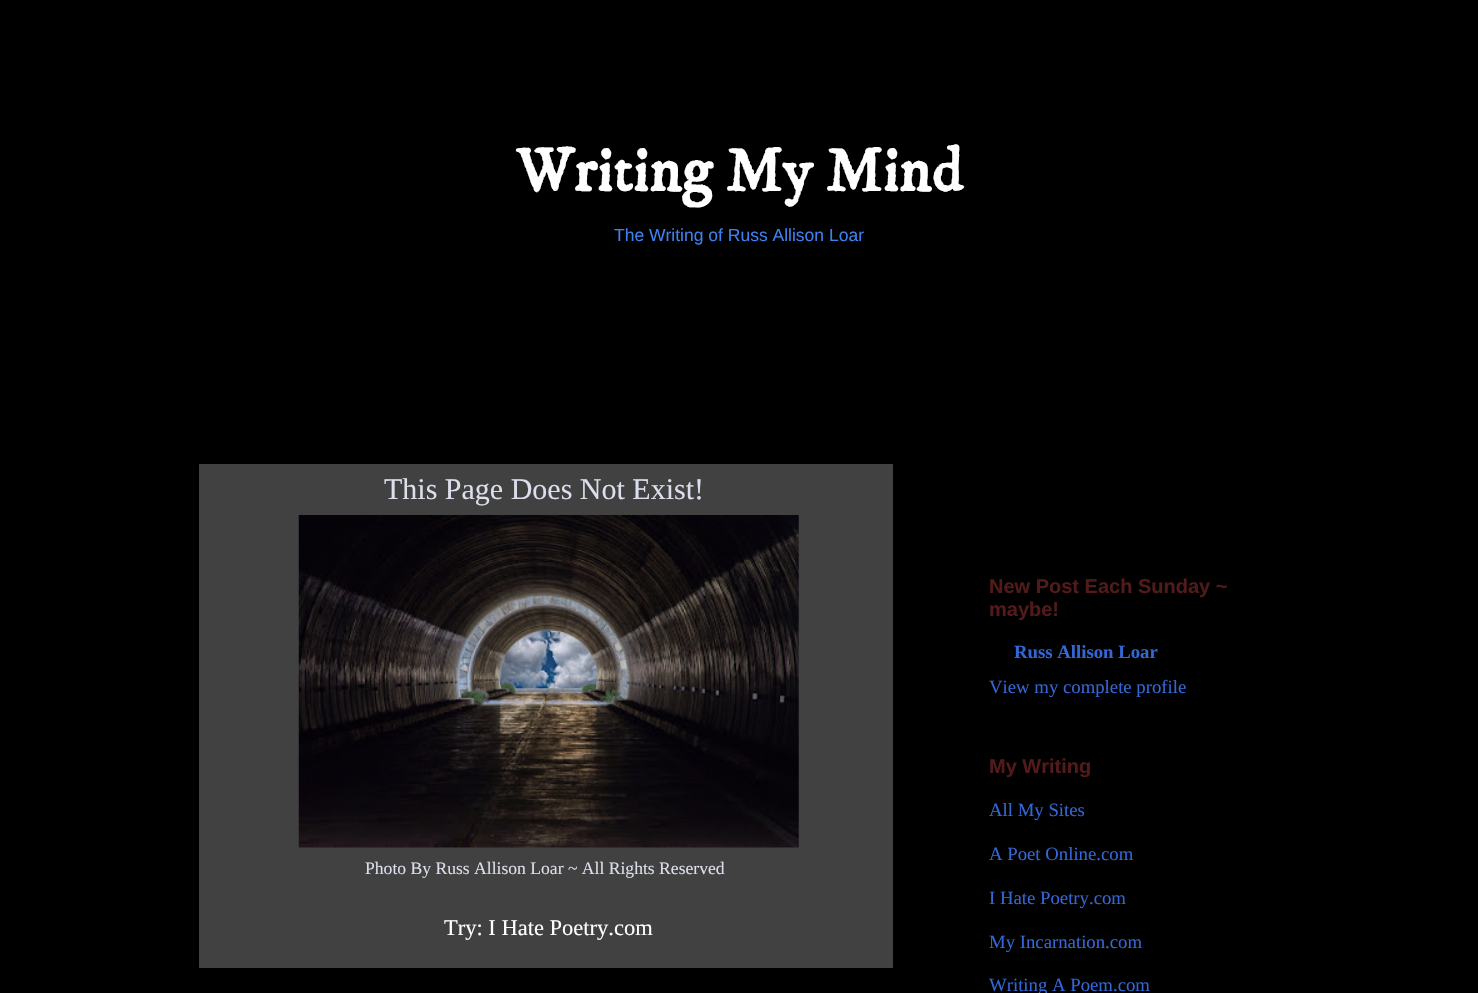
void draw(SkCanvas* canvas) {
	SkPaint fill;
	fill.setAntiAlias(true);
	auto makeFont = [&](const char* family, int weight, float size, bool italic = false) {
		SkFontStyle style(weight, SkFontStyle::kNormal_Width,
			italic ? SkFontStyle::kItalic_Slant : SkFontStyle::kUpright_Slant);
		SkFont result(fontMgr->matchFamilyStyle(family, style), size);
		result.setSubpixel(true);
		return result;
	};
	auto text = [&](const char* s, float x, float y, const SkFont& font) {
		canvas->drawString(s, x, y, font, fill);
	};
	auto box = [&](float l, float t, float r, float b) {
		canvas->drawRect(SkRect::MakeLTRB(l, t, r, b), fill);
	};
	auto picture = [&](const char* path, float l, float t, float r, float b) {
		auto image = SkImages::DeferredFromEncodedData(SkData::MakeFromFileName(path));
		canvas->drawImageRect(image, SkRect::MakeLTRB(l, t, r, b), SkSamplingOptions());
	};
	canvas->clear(0xFF000000);
	fill.setColor(0xFF414141);
	box(199, 464, 893, 968);
	picture("image0.png", 298, 515, 799, 848);
	auto font1 = makeFont("IM FELL DW Pica", 700, 62.5f);
	fill.setColor(0xFFFFFFFF);
	text("Writing My Mind", 516, 191, font1);
	auto font2 = makeFont("Liberation Sans", 400, 17.5f);
	fill.setColor(0xFF3D81EE);
	text("The Writing of Russ Allison Loar", 614, 241, font2);
	auto font3 = makeFont("Liberation Serif", 400, 30);
	fill.setColor(0xFFDCDFEB);
	text("This Page Does Not Exist!", 384, 499, font3);
	auto font4 = makeFont("Liberation Serif", 400, 17.6f);
	text("Photo By Russ Allison Loar ~ All Rights Reserved", 365, 874, font4);
	auto font5 = makeFont("Liberation Serif", 400, 22.5f);
	fill.setColor(0xFFFFFFFF);
	text("Try: I Hate Poetry.com", 444, 935, font5);
	auto font6 = makeFont("Liberation Sans", 700, 20);
	fill.setColor(0xFF521A1A);
	text("New Post Each Sunday ~", 989, 593, font6);
	text("maybe!", 989, 616, font6);
	auto font7 = makeFont("Liberation Serif", 700, 18.75f);
	fill.setColor(0xFF3367D6);
	text("Russ Allison Loar", 1014, 658, font7);
	auto font8 = makeFont("Liberation Serif", 400, 18.75f);
	text("View my complete profile", 989, 693, font8);
	fill.setColor(0xFF521A1A);
	text("My Writing", 989, 773, font6);
	fill.setColor(0xFF3367D6);
	text("All My Sites", 989, 816, font8);
	text("A Poet Online.com", 989, 860, font8);
	text("I Hate Poetry.com", 989, 904, font8);
	text("My Incarnation.com", 989, 948, font8);
	text("Writing A Poem.com", 989, 991, font8);
}
